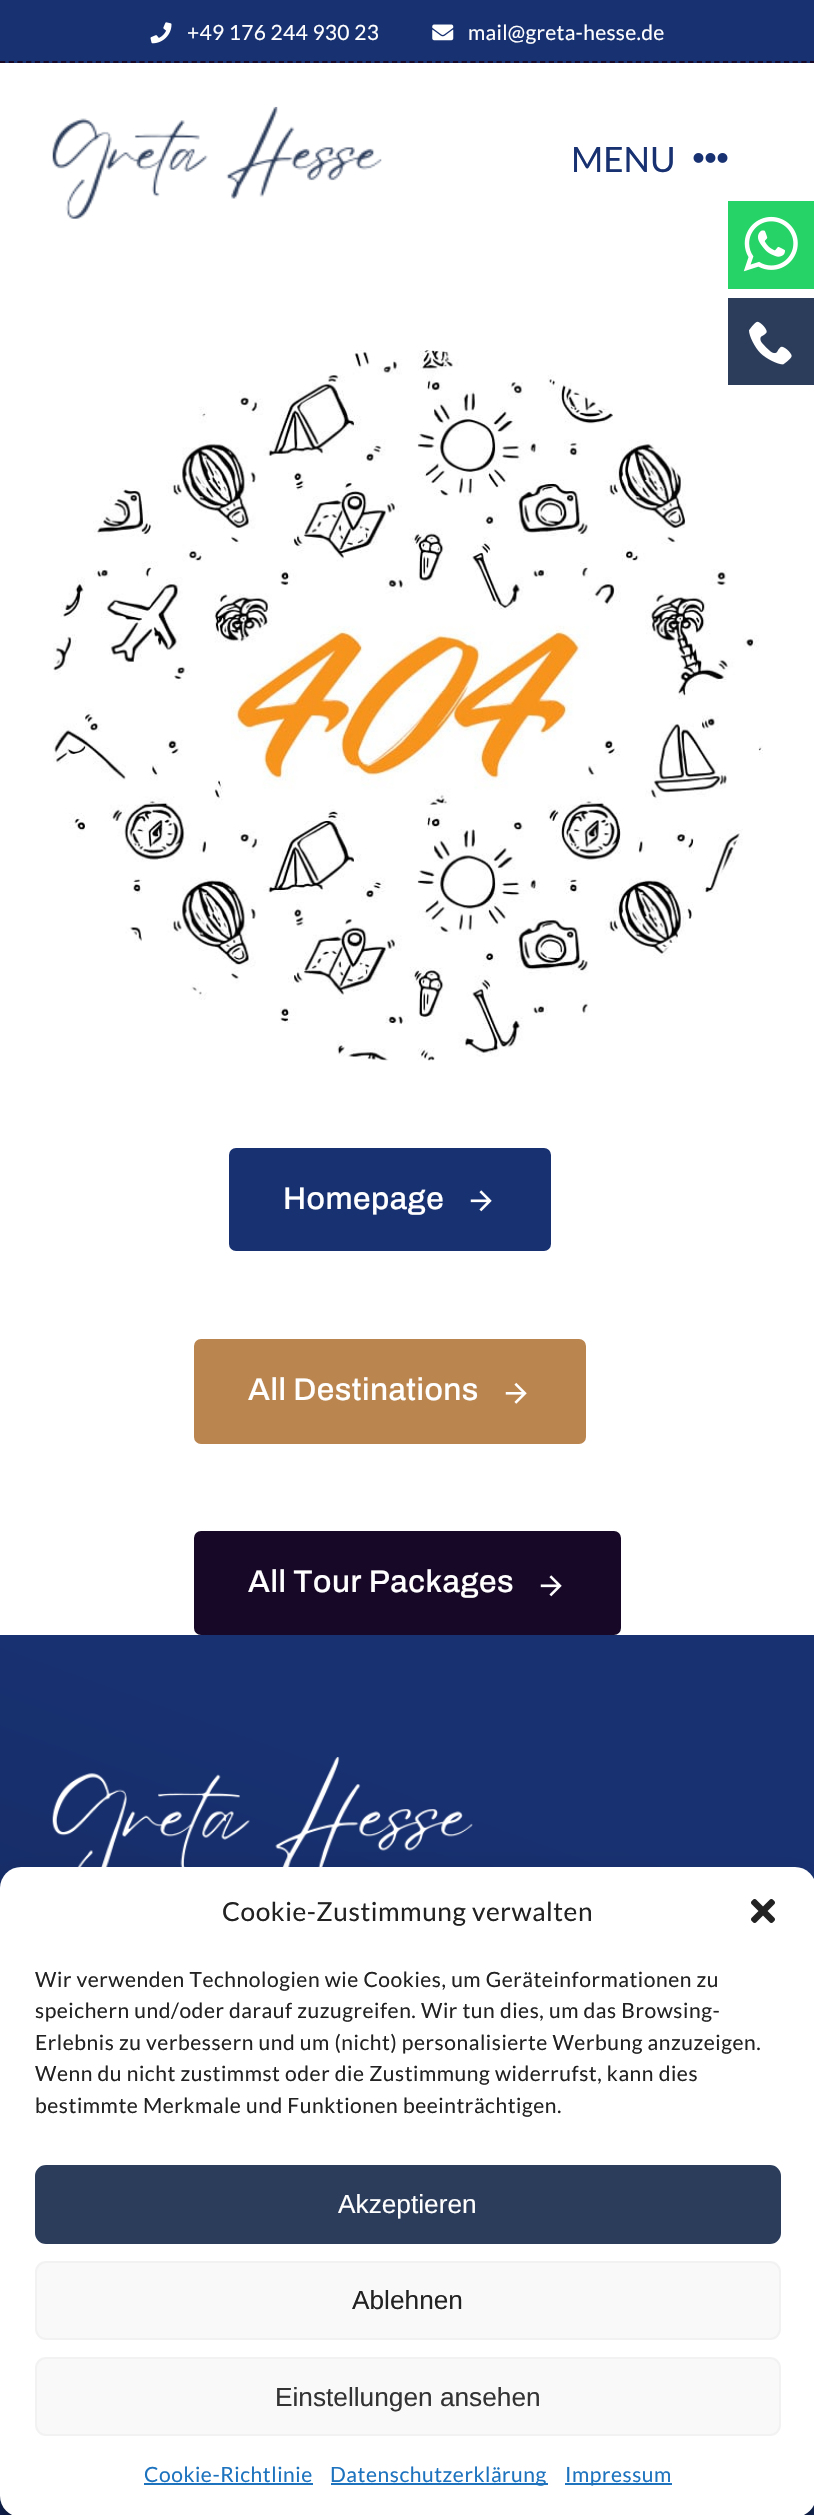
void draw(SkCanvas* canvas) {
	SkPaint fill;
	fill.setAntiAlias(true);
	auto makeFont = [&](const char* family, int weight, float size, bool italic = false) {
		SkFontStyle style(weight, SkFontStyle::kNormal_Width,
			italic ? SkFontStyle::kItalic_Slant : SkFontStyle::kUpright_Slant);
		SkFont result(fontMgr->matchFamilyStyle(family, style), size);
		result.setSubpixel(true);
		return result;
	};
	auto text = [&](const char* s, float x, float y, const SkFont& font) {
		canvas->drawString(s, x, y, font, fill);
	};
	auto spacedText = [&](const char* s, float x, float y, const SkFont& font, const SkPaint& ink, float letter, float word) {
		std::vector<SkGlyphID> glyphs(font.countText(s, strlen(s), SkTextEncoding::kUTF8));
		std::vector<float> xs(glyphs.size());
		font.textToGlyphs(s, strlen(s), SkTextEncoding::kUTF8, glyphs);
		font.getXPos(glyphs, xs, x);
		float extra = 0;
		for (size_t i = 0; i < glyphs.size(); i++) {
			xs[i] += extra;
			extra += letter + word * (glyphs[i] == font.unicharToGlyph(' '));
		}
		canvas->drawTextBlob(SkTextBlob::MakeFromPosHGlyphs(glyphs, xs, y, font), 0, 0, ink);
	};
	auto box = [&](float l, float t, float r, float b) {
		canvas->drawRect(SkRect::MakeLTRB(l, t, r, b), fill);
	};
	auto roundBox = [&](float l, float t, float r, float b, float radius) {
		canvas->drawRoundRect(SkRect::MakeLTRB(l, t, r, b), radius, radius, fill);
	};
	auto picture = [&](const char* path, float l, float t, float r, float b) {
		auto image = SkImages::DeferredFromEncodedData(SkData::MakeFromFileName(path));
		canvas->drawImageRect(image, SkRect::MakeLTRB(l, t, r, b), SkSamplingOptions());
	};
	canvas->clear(0xFFFFFFFF);
	fill.setColor(0xFF183171);
	box(0, 0, 814, 63);
	fill.setStyle(SkPaint::kStroke_Style);
	fill.setStrokeWidth(1.8f);
	fill.setColor(0xFF160826);
	fill.setPathEffect(SkDashPathEffect::Make({{5.25f, 3.46f}}, 0));
	canvas->drawPath(SkPathBuilder().moveTo(0, 62).lineTo(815.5f, 62).detach(), fill);
	fill.setPathEffect(nullptr);
	picture("image0.png", 150, 22, 172, 44);
	picture("image1.png", 432, 24, 454, 41);
	picture("image2.png", 52, 106, 382, 219);
	picture("image3.png", 693, 153, 728, 163);
	picture("image4.png", 53, 350, 763, 1061);
	fill.setStyle(SkPaint::kFill_Style);
	fill.setColor(0xFF183171);
	canvas->drawRoundRect(SkRect::MakeLTRB(230, 1149, 550, 1250), 6, 6, fill);
	fill.setStyle(SkPaint::kStroke_Style);
	fill.setStrokeWidth(2);
	canvas->drawRoundRect(SkRect::MakeLTRB(230, 1149, 550, 1250), 6, 6, fill);
	picture("image5.png", 470, 1190, 492, 1212);
	fill.setStyle(SkPaint::kFill_Style);
	fill.setColor(0xFFBA854F);
	canvas->drawRoundRect(SkRect::MakeLTRB(195, 1340, 585, 1443), 6, 6, fill);
	fill.setStyle(SkPaint::kStroke_Style);
	canvas->drawRoundRect(SkRect::MakeLTRB(195, 1340, 585, 1443), 6, 6, fill);
	picture("image6.png", 505, 1382, 527, 1404);
	fill.setStyle(SkPaint::kFill_Style);
	fill.setColor(0xFF160826);
	canvas->drawRoundRect(SkRect::MakeLTRB(195, 1532, 620, 1634), 6, 6, fill);
	fill.setStyle(SkPaint::kStroke_Style);
	canvas->drawRoundRect(SkRect::MakeLTRB(195, 1532, 620, 1634), 6, 6, fill);
	picture("image7.png", 540, 1575, 562, 1597);
	fill.setStyle(SkPaint::kFill_Style);
	{
		const SkColor colors[] = {0xFF183171, 0xFF0F1F48};
		const float stops[] = {0.12f, 0.74f};
		const SkPoint ends[] = {{771, 1618}, {45, 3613}};
		fill.setShader(SkGradientShader::MakeLinear(ends, colors, stops, 2, SkTileMode::kClamp));
		fill.setAlpha(255);
	}
	box(0, 1635, 814, 2515);
	picture("image8.png", 52, 1757, 473, 1867);
	fill.setShader(nullptr);
	fill.setColor(0xFF25D366);
	box(728, 201, 814, 289);
	picture("image9.png", 743, 216, 798, 272);
	fill.setColor(0xFF2C3D5B);
	box(728, 298, 814, 385);
	picture("image10.png", 749, 321, 792, 365);
	fill.setColor(0x3B000000);
	fill.setMaskFilter(SkMaskFilter::MakeBlur(kNormal_SkBlurStyle, 5));
	canvas->drawRoundRect(SkRect::MakeLTRB(0, 1878, 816, 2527), 21, 21, fill);
	fill.setMaskFilter(nullptr);
	fill.setColor(0x30000000);
	fill.setMaskFilter(SkMaskFilter::MakeBlur(kNormal_SkBlurStyle, 17.5f));
	canvas->drawRoundRect(SkRect::MakeLTRB(0, 1885, 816, 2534), 21, 21, fill);
	fill.setMaskFilter(nullptr);
	fill.setColor(0xFFFFFFFF);
	roundBox(0, 1867, 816, 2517, 21);
	picture("image11.png", 751, 1899, 775, 1923);
	fill.setColor(0xFF2C3D5B);
	canvas->drawRoundRect(SkRect::MakeLTRB(36, 2166, 780, 2243), 10, 10, fill);
	fill.setStyle(SkPaint::kStroke_Style);
	canvas->drawRoundRect(SkRect::MakeLTRB(36, 2166, 780, 2243), 10, 10, fill);
	fill.setStyle(SkPaint::kFill_Style);
	fill.setColor(0xFFF9F9F9);
	canvas->drawRoundRect(SkRect::MakeLTRB(36, 2262, 780, 2339), 10, 10, fill);
	fill.setStyle(SkPaint::kStroke_Style);
	fill.setColor(0xFFF2F2F2);
	canvas->drawRoundRect(SkRect::MakeLTRB(36, 2262, 780, 2339), 10, 10, fill);
	fill.setStyle(SkPaint::kFill_Style);
	fill.setColor(0xFFF9F9F9);
	canvas->drawRoundRect(SkRect::MakeLTRB(36, 2358, 780, 2435), 10, 10, fill);
	fill.setStyle(SkPaint::kStroke_Style);
	fill.setColor(0xFFF2F2F2);
	canvas->drawRoundRect(SkRect::MakeLTRB(36, 2358, 780, 2435), 10, 10, fill);
	fill.setStyle(SkPaint::kFill_Style);
	fill.setColor(0xFF1E73BE);
	box(144, 2483, 313, 2485);
	box(331, 2483, 548, 2485);
	box(565, 2483, 672, 2485);
	auto font1 = makeFont("Lato", 400, 21);
	fill.setColor(0xFFFFFFFF);
	spacedText("+49 176 244 930 23", 187, 40, font1, fill, 0.3f, 0);
	spacedText("mail@greta-hesse.de", 468, 40, font1, fill, 0.3f, 0);
	auto font2 = makeFont("Lato", 400, 35);
	fill.setColor(0xFF183171);
	text("MENU", 571, 172, font2);
	auto font3 = makeFont("Archivo", 500, 31.5f);
	fill.setColor(0xFFFFFFFF);
	spacedText("Homepage", 283, 1209, font3, fill, 0.5f, 0);
	spacedText("All Destinations", 248, 1400, font3, fill, 0.5f, 0);
	spacedText("All Tour Packages", 248, 1592, font3, fill, 0.5f, 0);
	auto font4 = makeFont("Lato", 400, 26.25f);
	fill.setColor(0xFF222222);
	spacedText("Cookie-Zustimmung verwalten", 222, 1921, font4, fill, 0.55f, 0);
	spacedText("Wir verwenden Technologien wie Cookies, um Geräteinformationen zu", 35, 1987, font1, fill, 0.55f, 0);
	spacedText("speichern und/oder darauf zuzugreifen. Wir tun dies, um das Browsing-", 35, 2018, font1, fill, 0.55f, 0);
	spacedText("Erlebnis zu verbessern und um (nicht) personalisierte Werbung anzuzeigen.", 35, 2050, font1, fill, 0.55f, 0);
	spacedText("Wenn du nicht zustimmst oder die Zustimmung widerrufst, kann dies", 35, 2081, font1, fill, 0.55f, 0);
	spacedText("bestimmte Merkmale und Funktionen beeinträchtigen.", 35, 2113, font1, fill, 0.55f, 0);
	auto font5 = makeFont("Liberation Sans", 400, 26.25f);
	fill.setColor(0xFFFFFFFF);
	text("Akzeptieren", 338, 2213, font5);
	fill.setColor(0xFF222222);
	text("Ablehnen", 352, 2309, font5);
	fill.setColor(0xFF333333);
	text("Einstellungen ansehen", 275, 2406, font5);
	fill.setColor(0xFF1E73BE);
	spacedText("Cookie-Richtlinie", 144, 2482, font1, fill, 0.55f, 0);
	spacedText("Datenschutzerklärung", 330, 2482, font1, fill, 0.55f, 0);
	spacedText("Impressum", 565, 2482, font1, fill, 0.55f, 0);
}
